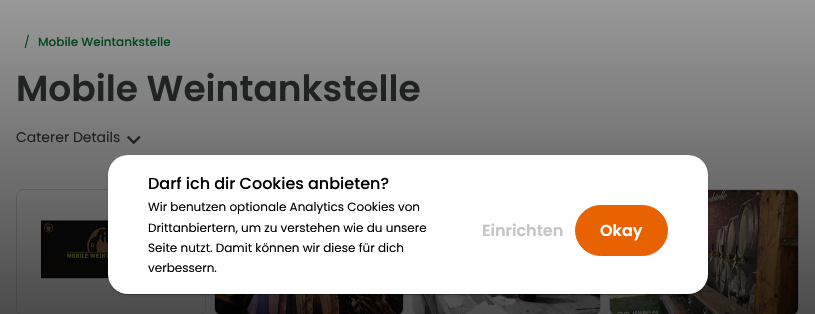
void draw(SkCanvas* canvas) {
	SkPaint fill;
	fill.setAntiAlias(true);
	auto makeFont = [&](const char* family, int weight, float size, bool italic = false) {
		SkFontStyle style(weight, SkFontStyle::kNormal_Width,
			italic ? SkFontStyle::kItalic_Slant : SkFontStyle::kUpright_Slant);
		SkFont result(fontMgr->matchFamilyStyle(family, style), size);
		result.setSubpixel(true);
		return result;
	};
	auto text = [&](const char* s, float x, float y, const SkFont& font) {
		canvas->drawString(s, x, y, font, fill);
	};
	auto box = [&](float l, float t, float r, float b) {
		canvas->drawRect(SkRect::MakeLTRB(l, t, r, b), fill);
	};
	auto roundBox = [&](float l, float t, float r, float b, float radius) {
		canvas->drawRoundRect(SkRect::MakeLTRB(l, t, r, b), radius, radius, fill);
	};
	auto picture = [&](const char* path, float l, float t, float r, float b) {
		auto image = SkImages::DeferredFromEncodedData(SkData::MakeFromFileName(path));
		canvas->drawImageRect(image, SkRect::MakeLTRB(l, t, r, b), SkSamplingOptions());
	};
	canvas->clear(0xFFFFFFFF);
	picture("image0.png", 127, 135, 141, 145);
	fill.setStyle(SkPaint::kStroke_Style);
	fill.setStrokeWidth(1);
	fill.setColor(0xFFDADADA);
	canvas->drawRoundRect(SkRect::MakeLTRB(16.5f, 189.5f, 205.5f, 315.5f), 7.5f, 7.5f, fill);
	picture("image1.png", 17, 190, 205, 314);
	canvas->drawRoundRect(SkRect::MakeLTRB(214.5f, 189.5f, 403.5f, 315.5f), 7.5f, 7.5f, fill);
	picture("image2.png", 215, 294, 403, 314);
	canvas->drawRoundRect(SkRect::MakeLTRB(412.5f, 189.5f, 600.5f, 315.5f), 7.5f, 7.5f, fill);
	picture("image3.png", 413, 294, 600, 314);
	canvas->drawRoundRect(SkRect::MakeLTRB(609.5f, 189.5f, 798.5f, 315.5f), 7.5f, 7.5f, fill);
	picture("image4.png", 610, 190, 798, 314);
	auto font1 = makeFont("Poppins", 400, 12);
	fill.setStyle(SkPaint::kFill_Style);
	fill.setColor(0xFF007F33);
	text("/", 24, 46, font1);
	auto font2 = makeFont("Poppins", 500, 12);
	text("Mobile Weintankstelle", 38, 46, font2);
	auto font3 = makeFont("Poppins", 600, 36);
	fill.setColor(0xFF3C4340);
	text("Mobile Weintankstelle", 16, 101, font3);
	auto font4 = makeFont("Poppins", 400, 14);
	text("Caterer Details", 16, 142, font4);
	{
		const SkColor colors[] = {0x66000000, 0xB3000000};
		const float stops[] = {0, 1};
		const SkPoint ends[] = {{408, 0}, {408, 314}};
		fill.setShader(SkGradientShader::MakeLinear(ends, colors, stops, 2, SkTileMode::kClamp));
		fill.setAlpha(255);
	}
	box(0, 0, 815, 314);
	fill.setShader(nullptr);
	fill.setColor(0x1F000000);
	fill.setMaskFilter(SkMaskFilter::MakeBlur(kNormal_SkBlurStyle, 1.5f));
	canvas->drawRoundRect(SkRect::MakeLTRB(108, 156, 708, 295), 20, 20, fill);
	fill.setMaskFilter(nullptr);
	fill.setColor(0x24000000);
	fill.setMaskFilter(SkMaskFilter::MakeBlur(kNormal_SkBlurStyle, 0.5f));
	canvas->drawRoundRect(SkRect::MakeLTRB(108, 156, 708, 295), 20, 20, fill);
	fill.setMaskFilter(nullptr);
	fill.setColor(0x33000000);
	fill.setMaskFilter(SkMaskFilter::MakeBlur(kNormal_SkBlurStyle, 0.5f));
	canvas->drawRoundRect(SkRect::MakeLTRB(109, 158, 707, 295), 19, 19, fill);
	fill.setMaskFilter(nullptr);
	fill.setColor(0xFFFFFFFF);
	roundBox(108, 155, 708, 294, 20);
	auto font5 = makeFont("Poppins", 500, 16);
	fill.setColor(0xFF000000);
	text("Darf ich dir Cookies anbieten?", 148, 189, font5);
	text("Wir benutzen optionale Analytics Cookies von", 148, 211, font1);
	text("Drittanbiertern, um zu verstehen wie du unsere", 148, 232, font1);
	text("Seite nutzt. Damit können wir diese für dich", 148, 252, font1);
	text("verbessern.", 148, 272, font1);
	auto font6 = makeFont("Poppins", 600, 16);
	fill.setColor(0xFFC3C6C5);
	text("Einrichten", 482, 236, font6);
	fill.setColor(0xFFE86202);
	canvas->drawRoundRect(SkRect::MakeLTRB(575.5f, 205.5f, 667.5f, 255.5f), 25, 25, fill);
	fill.setStyle(SkPaint::kStroke_Style);
	canvas->drawRoundRect(SkRect::MakeLTRB(575.5f, 205.5f, 667.5f, 255.5f), 25, 25, fill);
	fill.setStyle(SkPaint::kFill_Style);
	fill.setColor(0xFFFFFFFF);
	text("Okay", 600, 236, font6);
}
